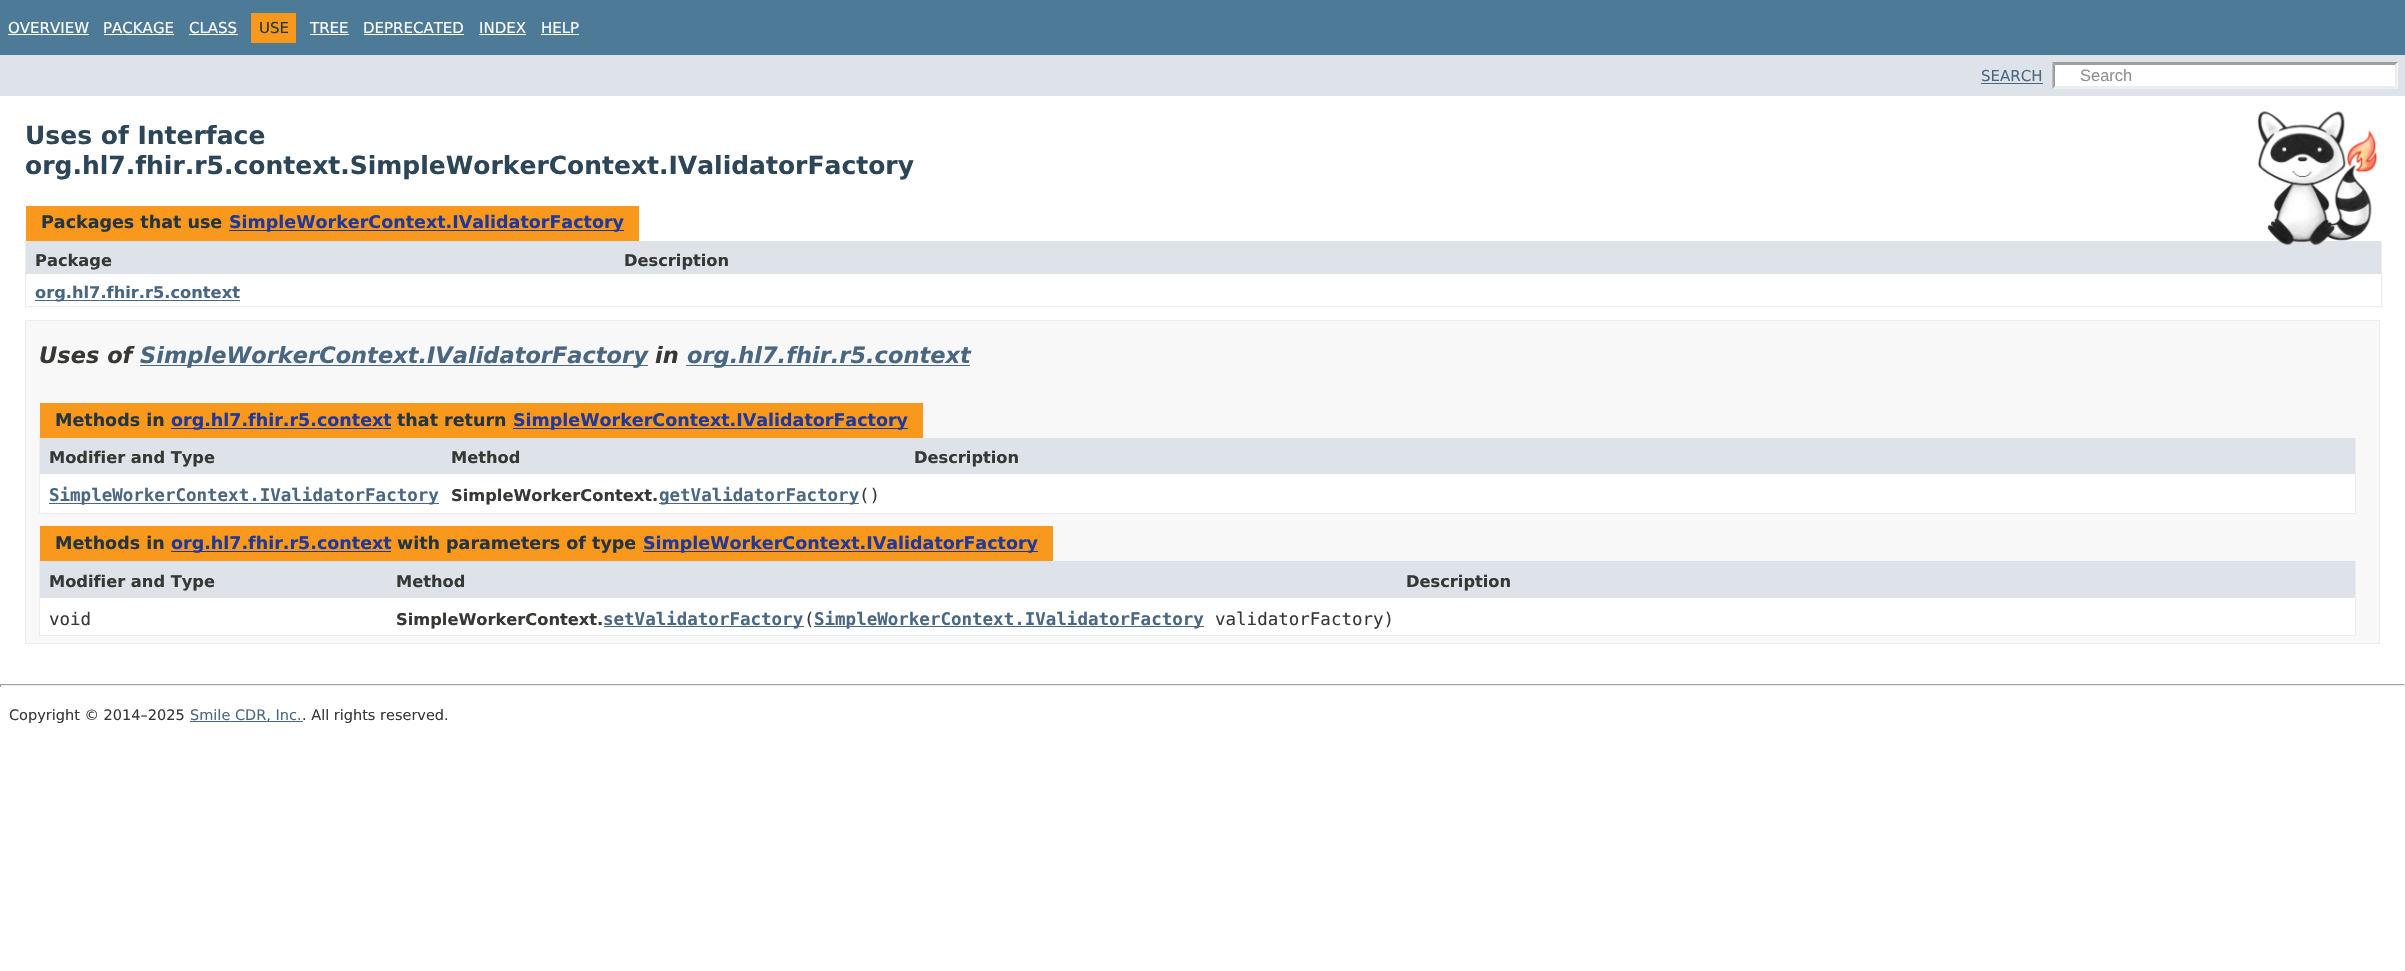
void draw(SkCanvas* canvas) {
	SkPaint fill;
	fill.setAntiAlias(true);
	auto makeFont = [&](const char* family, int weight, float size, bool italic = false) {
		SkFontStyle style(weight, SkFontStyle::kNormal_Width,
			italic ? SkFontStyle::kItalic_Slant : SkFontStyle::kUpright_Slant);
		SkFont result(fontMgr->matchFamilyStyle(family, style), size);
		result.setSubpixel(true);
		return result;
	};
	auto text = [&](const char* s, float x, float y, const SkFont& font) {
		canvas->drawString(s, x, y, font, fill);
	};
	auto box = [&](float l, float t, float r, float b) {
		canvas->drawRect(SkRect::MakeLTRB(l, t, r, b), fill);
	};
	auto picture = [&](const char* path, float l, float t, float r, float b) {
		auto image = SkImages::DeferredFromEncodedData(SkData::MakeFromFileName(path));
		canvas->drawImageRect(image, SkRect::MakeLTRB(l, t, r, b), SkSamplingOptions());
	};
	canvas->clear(0xFFFFFFFF);
	fill.setColor(0xFF4D7A97);
	box(0, 0, 2405, 55);
	fill.setColor(0xFFFFFFFF);
	box(8, 34, 89, 35);
	box(104, 34, 174, 35);
	box(189, 34, 238, 35);
	fill.setColor(0xFFF8981D);
	box(251, 13, 296, 43);
	fill.setColor(0xFFFFFFFF);
	box(310, 34, 349, 35);
	box(364, 34, 464, 35);
	box(479, 34, 526, 35);
	box(541, 34, 579, 35);
	fill.setColor(0xFFDEE3E9);
	box(0, 55, 2405, 96);
	fill.setColor(0xFF4A6782);
	box(1981, 83, 2043, 84);
	fill.setColor(0xFFFFFFFF);
	box(2053, 63, 2398, 89);
	fill.setColor(0xFF9E9E9E);
	canvas->drawPath(SkPathBuilder().moveTo(2052, 62).lineTo(2398, 62).lineTo(2395, 65).lineTo(2055, 65).close().detach(), fill);
	fill.setColor(0xFFEDEDED);
	canvas->drawPath(SkPathBuilder().moveTo(2397.5f, 62.5f).lineTo(2397.5f, 89).lineTo(2395, 86).lineTo(2395, 65).close().detach(), fill);
	canvas->drawPath(SkPathBuilder().moveTo(2398, 89).lineTo(2052, 89).lineTo(2055, 86).lineTo(2395, 86).close().detach(), fill);
	fill.setColor(0xFF9E9E9E);
	canvas->drawPath(SkPathBuilder().moveTo(2052.5f, 89).lineTo(2052.5f, 62.5f).lineTo(2055, 65).lineTo(2055, 86).close().detach(), fill);
	fill.setColor(0xFFDEE3E9);
	box(26, 241, 2381, 274);
	picture("image0.png", 2257, 111, 2378, 246);
	fill.setColor(0xFFF8981D);
	box(26, 206, 639, 241);
	fill.setColor(0xFF1F389C);
	box(229, 230, 624, 231);
	fill.setColor(0xFFEDEDED);
	box(2381, 241, 2382, 308);
	box(25, 306, 2383, 307);
	box(25, 241, 26, 308);
	fill.setColor(0xFF4A6782);
	box(35, 300, 240, 301);
	fill.setColor(0xFFF8F8F8);
	canvas->drawRect(SkRect::MakeLTRB(25.5f, 320.5f, 2379.5f, 643.5f), fill);
	fill.setStyle(SkPaint::kStroke_Style);
	fill.setStrokeWidth(1);
	fill.setColor(0xFFEDEDED);
	canvas->drawRect(SkRect::MakeLTRB(25.5f, 320.5f, 2379.5f, 643.5f), fill);
	fill.setStyle(SkPaint::kFill_Style);
	fill.setColor(0xFF4A6782);
	box(140, 365, 648, 366);
	box(686, 365, 970, 366);
	fill.setColor(0xFFF8981D);
	box(40, 403, 923, 438);
	fill.setColor(0xFF1F389C);
	box(171, 428, 391, 429);
	box(513, 428, 908, 429);
	fill.setColor(0xFFEDEDED);
	box(2355, 438, 2356, 514);
	box(39, 513, 2356, 514);
	box(39, 438, 40, 514);
	fill.setColor(0xFFDEE3E9);
	box(40, 438, 2355, 474);
	fill.setColor(0xFFFFFFFF);
	box(40, 474, 2355, 513);
	fill.setColor(0xFF4A6782);
	box(49, 503, 439, 504);
	box(659, 503, 859, 504);
	fill.setColor(0xFFF8981D);
	box(40, 526, 1053, 561);
	fill.setColor(0xFF1F389C);
	box(171, 551, 391, 552);
	box(643, 551, 1038, 552);
	fill.setColor(0xFFEDEDED);
	box(2355, 561, 2356, 636);
	box(39, 635, 2356, 636);
	box(39, 561, 40, 636);
	fill.setColor(0xFFDEE3E9);
	box(40, 561, 2355, 598);
	fill.setColor(0xFFFFFFFF);
	box(40, 598, 2355, 635);
	fill.setColor(0xFF4A6782);
	box(604, 626, 804, 627);
	box(814, 626, 1204, 627);
	fill.setColor(0xFF9F9F9F);
	box(0, 684, 2405, 685);
	fill.setColor(0xFFEEEEEE);
	box(2404, 684, 2405, 687);
	box(0, 685, 2405, 686);
	fill.setColor(0xFF9F9F9F);
	box(0, 684, 1, 687);
	fill.setColor(0xFF4A6782);
	box(190, 721, 303, 722);
	auto font1 = makeFont("DejaVu Sans", 400, 15);
	fill.setColor(0xFFFFFFFF);
	text("OVERVIEW", 8, 33, font1);
	text("PACKAGE", 103, 33, font1);
	text("CLASS", 189, 33, font1);
	fill.setColor(0xFF253441);
	text("USE", 259, 33, font1);
	fill.setColor(0xFFFFFFFF);
	text("TREE", 310, 33, font1);
	text("DEPRECATED", 363, 33, font1);
	text("INDEX", 479, 33, font1);
	text("HELP", 541, 33, font1);
	fill.setColor(0xFF4A6782);
	text("SEARCH", 1981, 81, font1);
	auto font2 = makeFont("Liberation Sans", 400, 16.5f);
	fill.setColor(0xFF909090);
	text("Search", 2080, 81, font2);
	auto font3 = makeFont("DejaVu Sans", 700, 25);
	fill.setColor(0xFF2C4557);
	text("Uses of Interface", 25, 144, font3);
	text("org.hl7.fhir.r5.context.SimpleWorkerContext.IValidatorFactory", 25, 174, font3);
	auto font4 = makeFont("DejaVu Sans", 700, 17.5f);
	fill.setColor(0xFF253441);
	text("Packages that use", 41, 228, font4);
	fill.setColor(0xFF1F389C);
	text("SimpleWorkerContext.IValidatorFactory", 229, 228, font4);
	auto font5 = makeFont("DejaVu Sans", 700, 16.25f);
	fill.setColor(0xFF353833);
	text("Package", 35, 266, font5);
	text("Description", 624, 266, font5);
	fill.setColor(0xFF4A6782);
	text("org.hl7.fhir.r5.context", 35, 298, font5);
	auto font6 = makeFont("DejaVu Sans", 700, 22.5f, true);
	fill.setColor(0xFF353833);
	text("Uses of", 39, 363, font6);
	fill.setColor(0xFF4A6782);
	text("SimpleWorkerContext.IValidatorFactory", 140, 363, font6);
	fill.setColor(0xFF353833);
	text("in", 655, 363, font6);
	fill.setColor(0xFF4A6782);
	text("org.hl7.fhir.r5.context", 687, 363, font6);
	fill.setColor(0xFF253441);
	text("Methods in", 55, 426, font4);
	fill.setColor(0xFF1F389C);
	text("org.hl7.fhir.r5.context", 171, 426, font4);
	fill.setColor(0xFF253441);
	text("that return", 397, 426, font4);
	fill.setColor(0xFF1F389C);
	text("SimpleWorkerContext.IValidatorFactory", 513, 426, font4);
	fill.setColor(0xFF353833);
	text("Modifier and Type", 49, 463, font5);
	text("Method", 451, 463, font5);
	text("Description", 914, 463, font5);
	auto font7 = makeFont("DejaVu Sans Mono", 700, 17.5f);
	fill.setColor(0xFF4A6782);
	text("SimpleWorkerContext.IValidatorFactory", 49, 501, font7);
	fill.setColor(0xFF353833);
	text("SimpleWorkerContext.", 451, 501, font5);
	fill.setColor(0xFF4A6782);
	text("getValidatorFactory", 659, 501, font7);
	auto font8 = makeFont("DejaVu Sans Mono", 400, 17.5f);
	fill.setColor(0xFF353833);
	text("()", 859, 501, font8);
	fill.setColor(0xFF253441);
	text("Methods in", 55, 549, font4);
	fill.setColor(0xFF1F389C);
	text("org.hl7.fhir.r5.context", 171, 549, font4);
	fill.setColor(0xFF253441);
	text("with parameters of type", 397, 549, font4);
	fill.setColor(0xFF1F389C);
	text("SimpleWorkerContext.IValidatorFactory", 643, 549, font4);
	fill.setColor(0xFF353833);
	text("Modifier and Type", 49, 587, font5);
	text("Method", 396, 587, font5);
	text("Description", 1406, 587, font5);
	text("void", 49, 625, font8);
	text("SimpleWorkerContext.", 396, 625, font5);
	fill.setColor(0xFF4A6782);
	text("setValidatorFactory", 603, 625, font7);
	fill.setColor(0xFF353833);
	text("(", 804, 625, font8);
	fill.setColor(0xFF4A6782);
	text("SimpleWorkerContext.IValidatorFactory", 814, 625, font7);
	fill.setColor(0xFF353833);
	text("validatorFactory)", 1215, 625, font8);
	auto font9 = makeFont("DejaVu Sans", 400, 14.5f);
	text("Copyright © 2014–2025", 9, 720, font9);
	fill.setColor(0xFF4A6782);
	text("Smile CDR, Inc.", 190, 720, font9);
	fill.setColor(0xFF353833);
	text(". All rights reserved.", 302, 720, font9);
}
